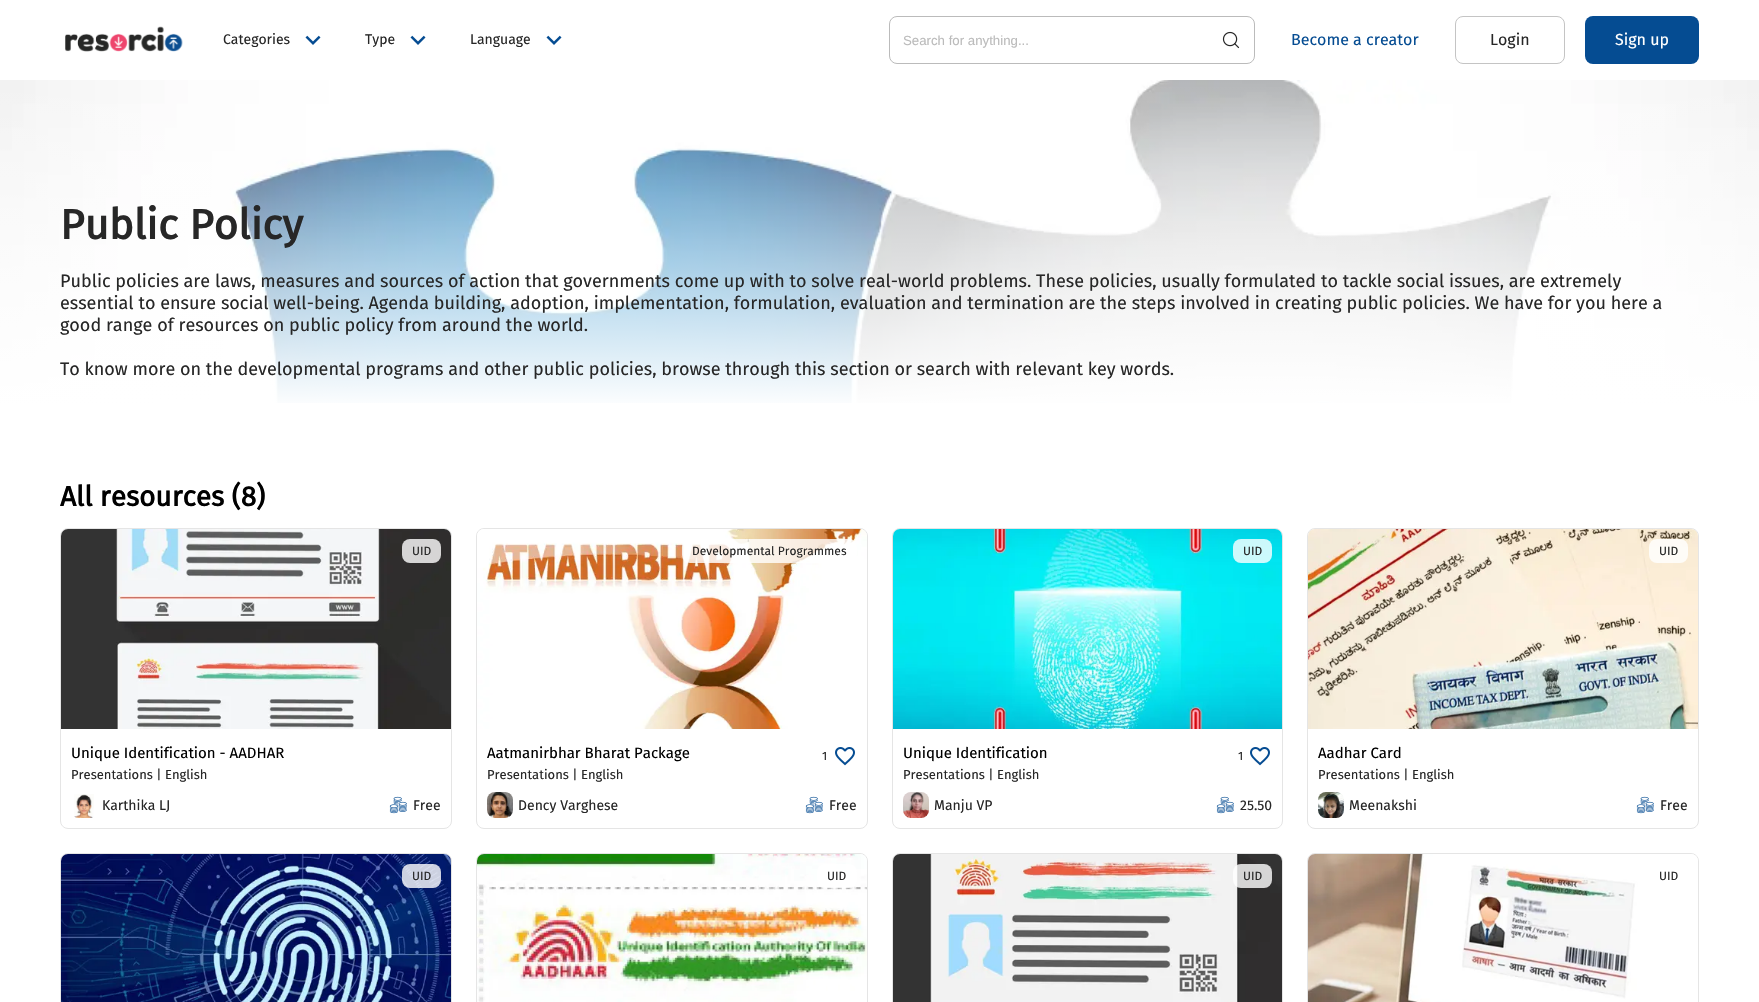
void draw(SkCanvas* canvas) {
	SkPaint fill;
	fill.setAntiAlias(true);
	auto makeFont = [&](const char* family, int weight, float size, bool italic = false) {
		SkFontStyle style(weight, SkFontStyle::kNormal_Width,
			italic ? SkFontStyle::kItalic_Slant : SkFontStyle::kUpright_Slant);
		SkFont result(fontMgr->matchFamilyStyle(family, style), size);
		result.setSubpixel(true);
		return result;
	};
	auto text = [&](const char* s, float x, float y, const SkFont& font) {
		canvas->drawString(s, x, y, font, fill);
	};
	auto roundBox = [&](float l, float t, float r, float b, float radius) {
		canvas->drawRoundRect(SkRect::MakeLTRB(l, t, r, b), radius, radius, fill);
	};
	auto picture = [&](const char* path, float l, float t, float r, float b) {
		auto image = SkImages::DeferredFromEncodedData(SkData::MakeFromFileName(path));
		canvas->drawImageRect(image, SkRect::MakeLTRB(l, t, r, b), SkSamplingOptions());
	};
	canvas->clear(0xFFFFFFFF);
	picture("image0.png", 65, 26, 183, 52);
	picture("image1.png", 305, 35, 321, 45);
	picture("image1.png", 410, 35, 426, 45);
	picture("image1.png", 546, 35, 562, 45);
	fill.setStyle(SkPaint::kStroke_Style);
	fill.setStrokeWidth(1);
	fill.setColor(0xFFBBBBBB);
	canvas->drawRoundRect(SkRect::MakeLTRB(889.5f, 16.5f, 1254.5f, 63.5f), 7.5f, 7.5f, fill);
	picture("image2.png", 1222, 31, 1240, 49);
	fill.setColor(0xFFC4C4C4);
	canvas->drawRoundRect(SkRect::MakeLTRB(1455.5f, 16.5f, 1564.5f, 63.5f), 7.5f, 7.5f, fill);
	fill.setStyle(SkPaint::kFill_Style);
	fill.setColor(0xFF054C92);
	roundBox(1585, 16, 1699, 64, 8);
	picture("image3.png", 0, 80, 1759, 403);
	fill.setStyle(SkPaint::kStroke_Style);
	fill.setColor(0xFFE5E5E5);
	canvas->drawRoundRect(SkRect::MakeLTRB(60.5f, 528.5f, 451.5f, 828.5f), 7.5f, 7.5f, fill);
	picture("image4.png", 61, 529, 451, 729);
	fill.setStyle(SkPaint::kFill_Style);
	fill.setColor(0xCCFFFFFF);
	roundBox(402, 539, 441, 563, 8);
	picture("image5.png", 74, 794, 94, 818);
	picture("image6.png", 389, 796, 407, 814);
	fill.setStyle(SkPaint::kStroke_Style);
	fill.setColor(0xFFE5E5E5);
	canvas->drawRoundRect(SkRect::MakeLTRB(476.5f, 528.5f, 867.5f, 828.5f), 7.5f, 7.5f, fill);
	picture("image7.png", 477, 529, 867, 729);
	fill.setStyle(SkPaint::kFill_Style);
	fill.setColor(0xCCFFFFFF);
	roundBox(682, 539, 857, 563, 8);
	picture("image8.png", 835, 747, 855, 766);
	picture("image9.png", 487, 792, 513, 818);
	picture("image6.png", 805, 796, 823, 814);
	fill.setStyle(SkPaint::kStroke_Style);
	fill.setColor(0xFFE5E5E5);
	canvas->drawRoundRect(SkRect::MakeLTRB(892.5f, 528.5f, 1282.5f, 828.5f), 7.5f, 7.5f, fill);
	picture("image10.png", 893, 529, 1282, 729);
	fill.setStyle(SkPaint::kFill_Style);
	fill.setColor(0xCCFFFFFF);
	roundBox(1233, 539, 1272, 563, 8);
	picture("image8.png", 1250, 747, 1270, 766);
	picture("image11.png", 903, 792, 929, 818);
	picture("image6.png", 1216, 796, 1234, 814);
	fill.setStyle(SkPaint::kStroke_Style);
	fill.setColor(0xFFE5E5E5);
	canvas->drawRoundRect(SkRect::MakeLTRB(1307.5f, 528.5f, 1698.5f, 828.5f), 7.5f, 7.5f, fill);
	picture("image12.png", 1308, 529, 1698, 729);
	fill.setStyle(SkPaint::kFill_Style);
	fill.setColor(0xCCFFFFFF);
	roundBox(1649, 539, 1688, 563, 8);
	picture("image13.png", 1318, 792, 1344, 818);
	picture("image6.png", 1636, 796, 1654, 814);
	fill.setStyle(SkPaint::kStroke_Style);
	fill.setColor(0xFFE5E5E5);
	canvas->drawRoundRect(SkRect::MakeLTRB(60.5f, 853.5f, 451.5f, 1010.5f), 7.5f, 7.5f, fill);
	picture("image14.png", 61, 854, 451, 1002);
	fill.setStyle(SkPaint::kFill_Style);
	fill.setColor(0xCCFFFFFF);
	roundBox(402, 864, 441, 888, 8);
	fill.setStyle(SkPaint::kStroke_Style);
	fill.setColor(0xFFE5E5E5);
	canvas->drawRoundRect(SkRect::MakeLTRB(476.5f, 853.5f, 867.5f, 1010.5f), 7.5f, 7.5f, fill);
	picture("image15.png", 477, 854, 867, 1002);
	fill.setStyle(SkPaint::kFill_Style);
	fill.setColor(0xCCFFFFFF);
	roundBox(817, 864, 857, 888, 8);
	fill.setStyle(SkPaint::kStroke_Style);
	fill.setColor(0xFFE5E5E5);
	canvas->drawRoundRect(SkRect::MakeLTRB(892.5f, 853.5f, 1282.5f, 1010.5f), 7.5f, 7.5f, fill);
	picture("image16.png", 893, 854, 1282, 1002);
	fill.setStyle(SkPaint::kFill_Style);
	fill.setColor(0xCCFFFFFF);
	roundBox(1233, 864, 1272, 888, 8);
	fill.setStyle(SkPaint::kStroke_Style);
	fill.setColor(0xFFE5E5E5);
	canvas->drawRoundRect(SkRect::MakeLTRB(1307.5f, 853.5f, 1698.5f, 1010.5f), 7.5f, 7.5f, fill);
	picture("image17.png", 1308, 854, 1698, 1002);
	auto font1 = makeFont("Fira Sans", 400, 14);
	fill.setStyle(SkPaint::kFill_Style);
	fill.setColor(0xFF272727);
	text("Categories", 223, 44, font1);
	text("Type", 365, 44, font1);
	text("Language", 470, 44, font1);
	auto font2 = makeFont("Liberation Sans", 400, 13.25f);
	fill.setColor(0xFFBBBBBB);
	text("Search for anything...", 903, 45, font2);
	auto font3 = makeFont("Fira Sans", 400, 16);
	fill.setColor(0xFF054C92);
	text("Become a creator", 1291, 45, font3);
	fill.setColor(0xFF272727);
	text("Login", 1490, 45, font3);
	fill.setColor(0xFFFFFFFF);
	text("Sign up", 1615, 45, font3);
	auto font4 = makeFont("Fira Sans", 700, 42);
	fill.setColor(0xFF272727);
	text("Public Policy", 60, 239, font4);
	auto font5 = makeFont("Fira Sans", 400, 18);
	text("Public policies are laws, measures and sources of action that governments come up with to solve real-world problems. These policies, usually formulated to tackle social issues, are extremely", 60, 287, font5);
	text("essential to ensure social well-being. Agenda building, adoption, implementation, formulation, evaluation and termination are the steps involved in creating public policies. We have for you here a", 60, 309, font5);
	text("good range of resources on public policy from around the world.", 60, 331, font5);
	text("To know more on the developmental programs and other public policies, browse through this section or search with relevant key words.", 60, 375, font5);
	auto font6 = makeFont("Fira Sans", 700, 28);
	fill.setColor(0xFF000000);
	text("All resources (8)", 60, 506, font6);
	auto font7 = makeFont("Fira Sans", 400, 12);
	fill.setColor(0xFF272727);
	text("UID", 412, 555, font7);
	auto font8 = makeFont("Fira Sans", 400, 15);
	fill.setColor(0xFF000000);
	text("Unique Identification - AADHAR", 71, 758, font8);
	auto font9 = makeFont("Fira Sans", 400, 13);
	fill.setColor(0xFF272727);
	text("Presentations | English", 71, 779, font9);
	text("Karthika LJ", 102, 810, font1);
	text("Free", 413, 810, font1);
	text("Developmental Programmes", 692, 555, font7);
	fill.setColor(0xFF000000);
	text("Aatmanirbhar Bharat Package", 487, 758, font8);
	fill.setColor(0xFF272727);
	text("Presentations | English", 487, 779, font9);
	text("1", 822, 760, font7);
	text("Dency Varghese", 518, 810, font1);
	text("Free", 829, 810, font1);
	text("UID", 1243, 555, font7);
	fill.setColor(0xFF000000);
	text("Unique Identification", 903, 758, font8);
	fill.setColor(0xFF272727);
	text("Presentations | English", 903, 779, font9);
	text("1", 1238, 760, font7);
	text("Manju VP", 934, 810, font1);
	text("25.50", 1240, 810, font1);
	text("UID", 1659, 555, font7);
	fill.setColor(0xFF000000);
	text("Aadhar Card", 1318, 758, font8);
	fill.setColor(0xFF272727);
	text("Presentations | English", 1318, 779, font9);
	text("Meenakshi", 1349, 810, font1);
	text("Free", 1660, 810, font1);
	text("UID", 412, 880, font7);
	text("UID", 827, 880, font7);
	text("UID", 1243, 880, font7);
	text("UID", 1659, 880, font7);
}
